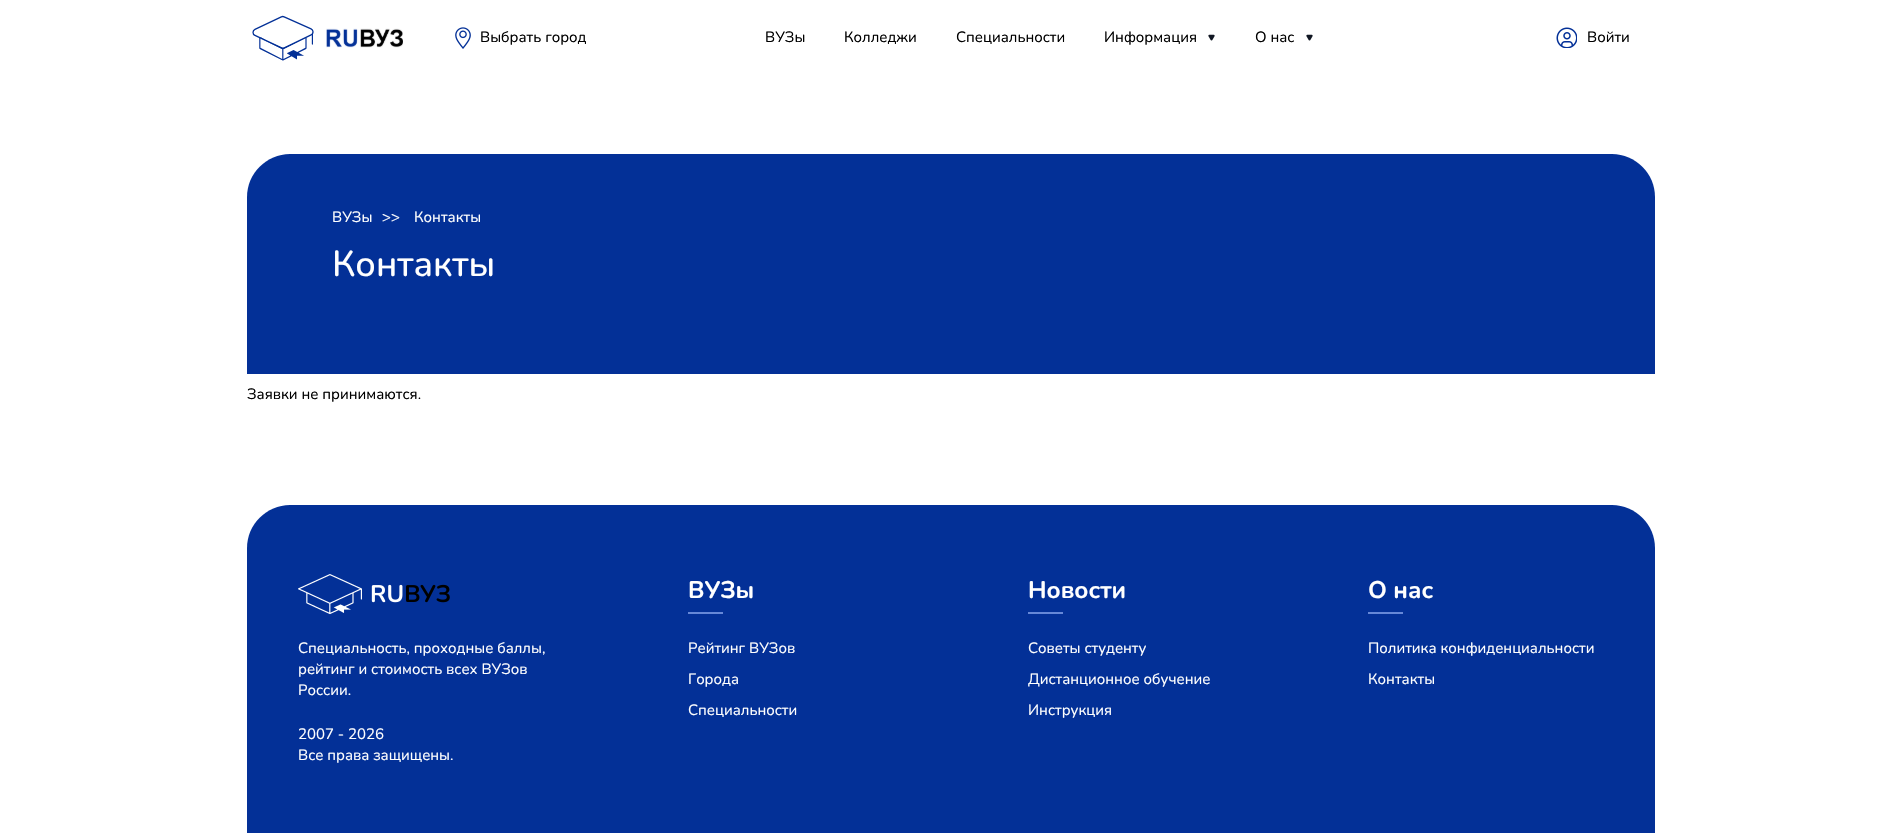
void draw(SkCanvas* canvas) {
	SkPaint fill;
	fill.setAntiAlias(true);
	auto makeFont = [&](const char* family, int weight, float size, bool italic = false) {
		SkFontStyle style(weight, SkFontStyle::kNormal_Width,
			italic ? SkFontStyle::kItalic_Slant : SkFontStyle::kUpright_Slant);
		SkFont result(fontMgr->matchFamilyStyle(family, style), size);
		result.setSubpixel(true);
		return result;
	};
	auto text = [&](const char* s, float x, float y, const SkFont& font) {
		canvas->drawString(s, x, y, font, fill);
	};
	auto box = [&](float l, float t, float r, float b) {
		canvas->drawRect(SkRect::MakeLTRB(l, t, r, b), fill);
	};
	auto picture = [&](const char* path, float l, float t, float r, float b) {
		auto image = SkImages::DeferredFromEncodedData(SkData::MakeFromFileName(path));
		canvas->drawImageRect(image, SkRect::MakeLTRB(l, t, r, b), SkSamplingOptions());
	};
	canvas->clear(0xFFFFFFFF);
	picture("image0.png", 252, 15, 403, 61);
	picture("image1.png", 455, 27, 471, 49);
	picture("image2.png", 1208, 34, 1215, 41);
	picture("image2.png", 1306, 34, 1313, 41);
	picture("image3.png", 1556, 27, 1577, 48);
	fill.setColor(0xFF033097);
	canvas->drawPath(SkPathBuilder().moveTo(290, 154).lineTo(1612, 154).cubicTo(1635.5f, 154, 1655, 173.5f, 1655, 197).lineTo(1655, 374).lineTo(247, 374).lineTo(247, 197).cubicTo(247, 173.5f, 266.5f, 154, 290, 154).close().detach(), fill);
	canvas->drawPath(SkPathBuilder().moveTo(290, 505).lineTo(1612, 505).cubicTo(1635.5f, 505, 1655, 524.5f, 1655, 548).lineTo(1655, 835).lineTo(247, 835).lineTo(247, 548).cubicTo(247, 524.5f, 266.5f, 505, 290, 505).close().detach(), fill);
	picture("image4.png", 298, 574, 450, 615);
	fill.setColor(0xFF6688D7);
	box(688, 612, 723, 614);
	box(1028, 612, 1063, 614);
	box(1368, 612, 1403, 614);
	auto font1 = makeFont("Nunito", 400, 15);
	fill.setColor(0xFF000000);
	text("Выбрать город", 480, 42, font1);
	text("ВУЗы", 765, 42, font1);
	text("Колледжи", 844, 42, font1);
	text("Специальности", 956, 42, font1);
	text("Информация", 1104, 42, font1);
	text("О нас", 1255, 42, font1);
	text("Войти", 1587, 42, font1);
	fill.setColor(0xFFFFFFFF);
	text("ВУЗы", 332, 222, font1);
	text(">>", 382, 222, font1);
	text("Контакты", 414, 222, font1);
	auto font2 = makeFont("Nunito", 500, 36);
	text("Контакты", 332, 276, font2);
	fill.setColor(0xFF000000);
	text("Заявки не принимаются.", 247, 399, font1);
	fill.setColor(0xFFFFFFFF);
	text("Специальность, проходные баллы,", 298, 653, font1);
	text("рейтинг и стоимость всех ВУЗов", 298, 674, font1);
	text("России.", 298, 695, font1);
	text("2007 - 2026", 298, 739, font1);
	text("Все права защищены.", 298, 760, font1);
	auto font3 = makeFont("Nunito", 700, 24);
	text("ВУЗы", 688, 598, font3);
	text("Рейтинг ВУЗов", 688, 653, font1);
	text("Города", 688, 684, font1);
	text("Специальности", 688, 715, font1);
	text("Новости", 1028, 598, font3);
	text("Советы студенту", 1028, 653, font1);
	text("Дистанционное обучение", 1028, 684, font1);
	text("Инструкция", 1028, 715, font1);
	text("О нас", 1368, 598, font3);
	text("Политика конфиденциальности", 1368, 653, font1);
	text("Контакты", 1368, 684, font1);
}
